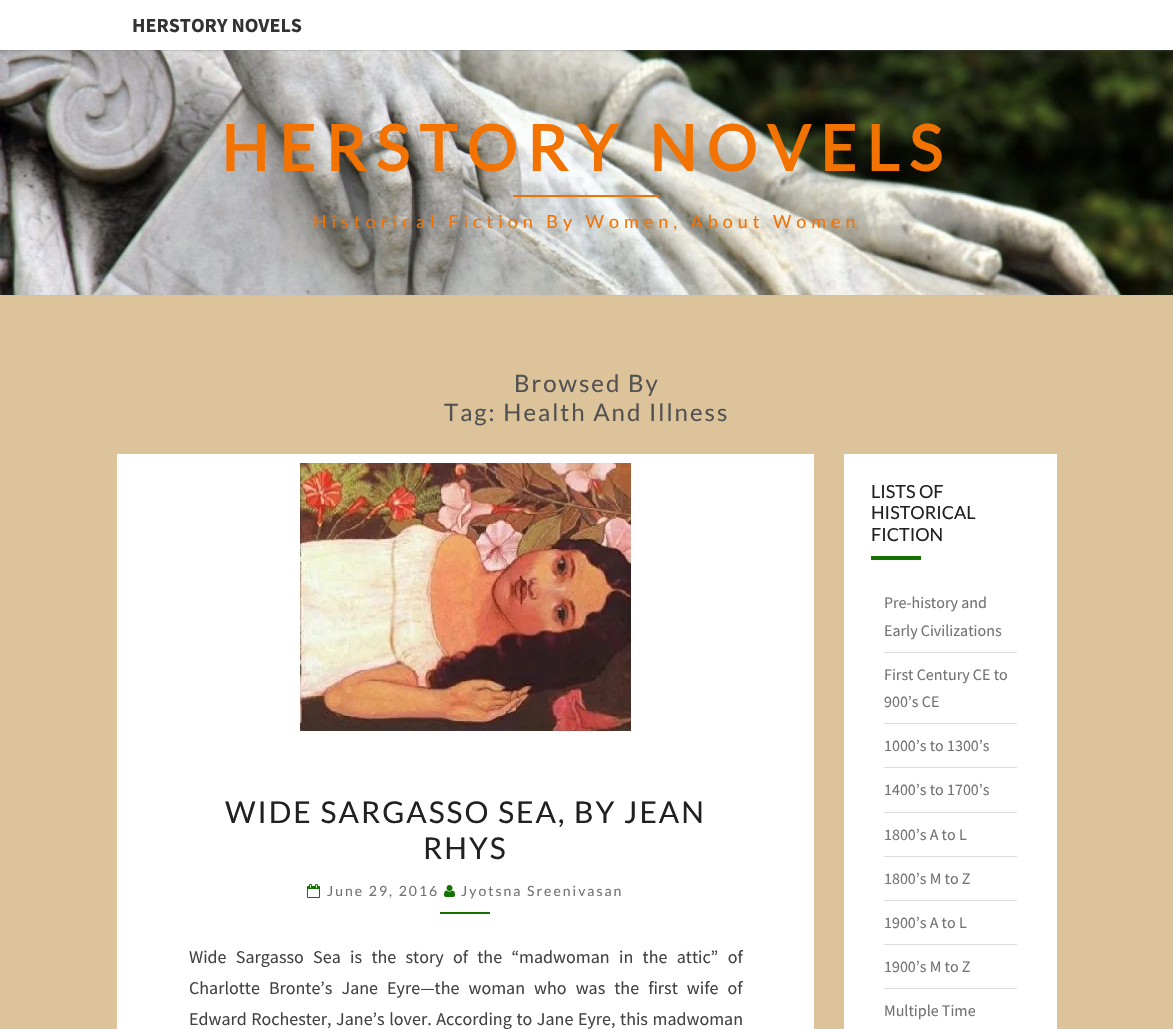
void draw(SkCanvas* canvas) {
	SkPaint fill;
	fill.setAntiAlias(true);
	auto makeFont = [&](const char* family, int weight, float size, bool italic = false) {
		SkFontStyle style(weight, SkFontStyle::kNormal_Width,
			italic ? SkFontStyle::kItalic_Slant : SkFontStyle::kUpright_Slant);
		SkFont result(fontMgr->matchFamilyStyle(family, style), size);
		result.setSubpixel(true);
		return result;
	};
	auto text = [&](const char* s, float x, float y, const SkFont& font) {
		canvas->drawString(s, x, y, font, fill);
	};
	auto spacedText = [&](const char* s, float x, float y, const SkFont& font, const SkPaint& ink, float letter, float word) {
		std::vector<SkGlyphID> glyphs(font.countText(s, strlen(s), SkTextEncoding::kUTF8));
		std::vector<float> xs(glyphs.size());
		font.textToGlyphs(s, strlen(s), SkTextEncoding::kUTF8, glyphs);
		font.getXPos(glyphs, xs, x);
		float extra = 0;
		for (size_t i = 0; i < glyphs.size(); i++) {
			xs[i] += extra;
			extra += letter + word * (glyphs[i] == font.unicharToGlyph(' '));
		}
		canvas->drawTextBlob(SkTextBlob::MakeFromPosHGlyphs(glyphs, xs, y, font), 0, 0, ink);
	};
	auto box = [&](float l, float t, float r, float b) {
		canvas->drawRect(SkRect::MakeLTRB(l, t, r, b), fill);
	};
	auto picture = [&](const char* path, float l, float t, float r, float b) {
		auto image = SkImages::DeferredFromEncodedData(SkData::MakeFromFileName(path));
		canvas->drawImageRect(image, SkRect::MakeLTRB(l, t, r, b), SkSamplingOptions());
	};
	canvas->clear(0xFFDDC399);
	fill.setColor(0x4DB6B6B6);
	fill.setMaskFilter(SkMaskFilter::MakeBlur(kNormal_SkBlurStyle, 1));
	canvas->drawRect(SkRect::MakeLTRB(-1, 49, 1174, 296), fill);
	fill.setMaskFilter(nullptr);
	picture("image0.png", 0, 50, 1173, 295);
	fill.setColor(0x33646464);
	fill.setMaskFilter(SkMaskFilter::MakeBlur(kNormal_SkBlurStyle, 0.5f));
	canvas->drawRect(SkRect::MakeLTRB(0, 1, 1173, 51), fill);
	fill.setMaskFilter(nullptr);
	fill.setColor(0xFFFFFFFF);
	box(0, 0, 1173, 50);
	fill.setColor(0xFFF27202);
	box(513, 195, 659, 197);
	fill.setColor(0xFFFFFFFF);
	box(117, 454, 814, 1029);
	picture("image1.png", 300, 463, 631, 731);
	picture("image2.png", 307, 884, 320, 898);
	picture("image3.png", 444, 885, 455, 897);
	fill.setColor(0xFF157200);
	box(440, 912, 490, 914);
	fill.setColor(0xFFFFFFFF);
	box(844, 454, 1057, 1029);
	fill.setColor(0xFF157200);
	box(871, 556, 921, 560);
	fill.setColor(0xFFDDDDDD);
	box(884, 652, 1017, 653);
	box(884, 723, 1017, 724);
	box(884, 767, 1017, 768);
	box(884, 812, 1017, 813);
	box(884, 856, 1017, 857);
	box(884, 900, 1017, 901);
	box(884, 944, 1017, 945);
	box(884, 988, 1017, 989);
	auto font1 = makeFont("Source Sans Pro", 700, 20);
	fill.setColor(0xFF333333);
	text("HERSTORY NOVELS", 132, 32, font1);
	auto font2 = makeFont("Lato", 700, 63);
	fill.setColor(0xFFF27202);
	spacedText("HERSTORY NOVELS", 221, 171, font2, fill, 10, 0);
	auto font3 = makeFont("Lato", 400, 18);
	spacedText("Historical Fiction By Women, About Women", 313, 228, font3, fill, 5, 0);
	auto font4 = makeFont("Lato", 400, 24);
	fill.setColor(0xFF525252);
	spacedText("Browsed By", 514, 392, font4, fill, 2, 0);
	spacedText("Tag: Health And Illness", 444, 421, font4, fill, 2, 0);
	auto font5 = makeFont("Lato", 400, 30);
	fill.setColor(0xFF212121);
	spacedText("WIDE SARGASSO SEA, BY JEAN", 225, 823, font5, fill, 2, 0);
	spacedText("RHYS", 423, 859, font5, fill, 2, 0);
	auto font6 = makeFont("Lato", 400, 14);
	fill.setColor(0xFF727272);
	spacedText("June 29, 2016", 327, 896, font6, fill, 2, 0);
	spacedText("Jyotsna Sreenivasan", 461, 896, font6, fill, 2, 0);
	auto font7 = makeFont("Source Sans Pro", 400, 18);
	fill.setColor(0xFF424242);
	spacedText("Wide Sargasso Sea is the story of the “madwoman in the attic” of", 189, 963, font7, fill, 0, 5.75f);
	spacedText("Charlotte Bronte’s Jane Eyre—the woman who was the first wife of", 189, 994, font7, fill, 0, 5.5f);
	spacedText("Edward Rochester, Jane’s lover. According to Jane Eyre, this madwoman", 189, 1025, font7, fill, 0, 1);
	fill.setColor(0xFF212121);
	text("LISTS OF", 871, 498, font3);
	text("HISTORICAL", 871, 519, font3);
	text("FICTION", 871, 541, font3);
	auto font8 = makeFont("Source Sans Pro", 400, 16);
	fill.setColor(0xFF727272);
	text("Pre-history and", 884, 608, font8);
	text("Early Civilizations", 884, 636, font8);
	text("First Century CE to", 884, 680, font8);
	text("900’s CE", 884, 707, font8);
	text("1000’s to 1300’s", 884, 751, font8);
	text("1400’s to 1700’s", 884, 795, font8);
	text("1800’s A to L", 884, 840, font8);
	text("1800’s M to Z", 884, 884, font8);
	text("1900’s A to L", 884, 928, font8);
	text("1900’s M to Z", 884, 972, font8);
	text("Multiple Time", 884, 1016, font8);
}
